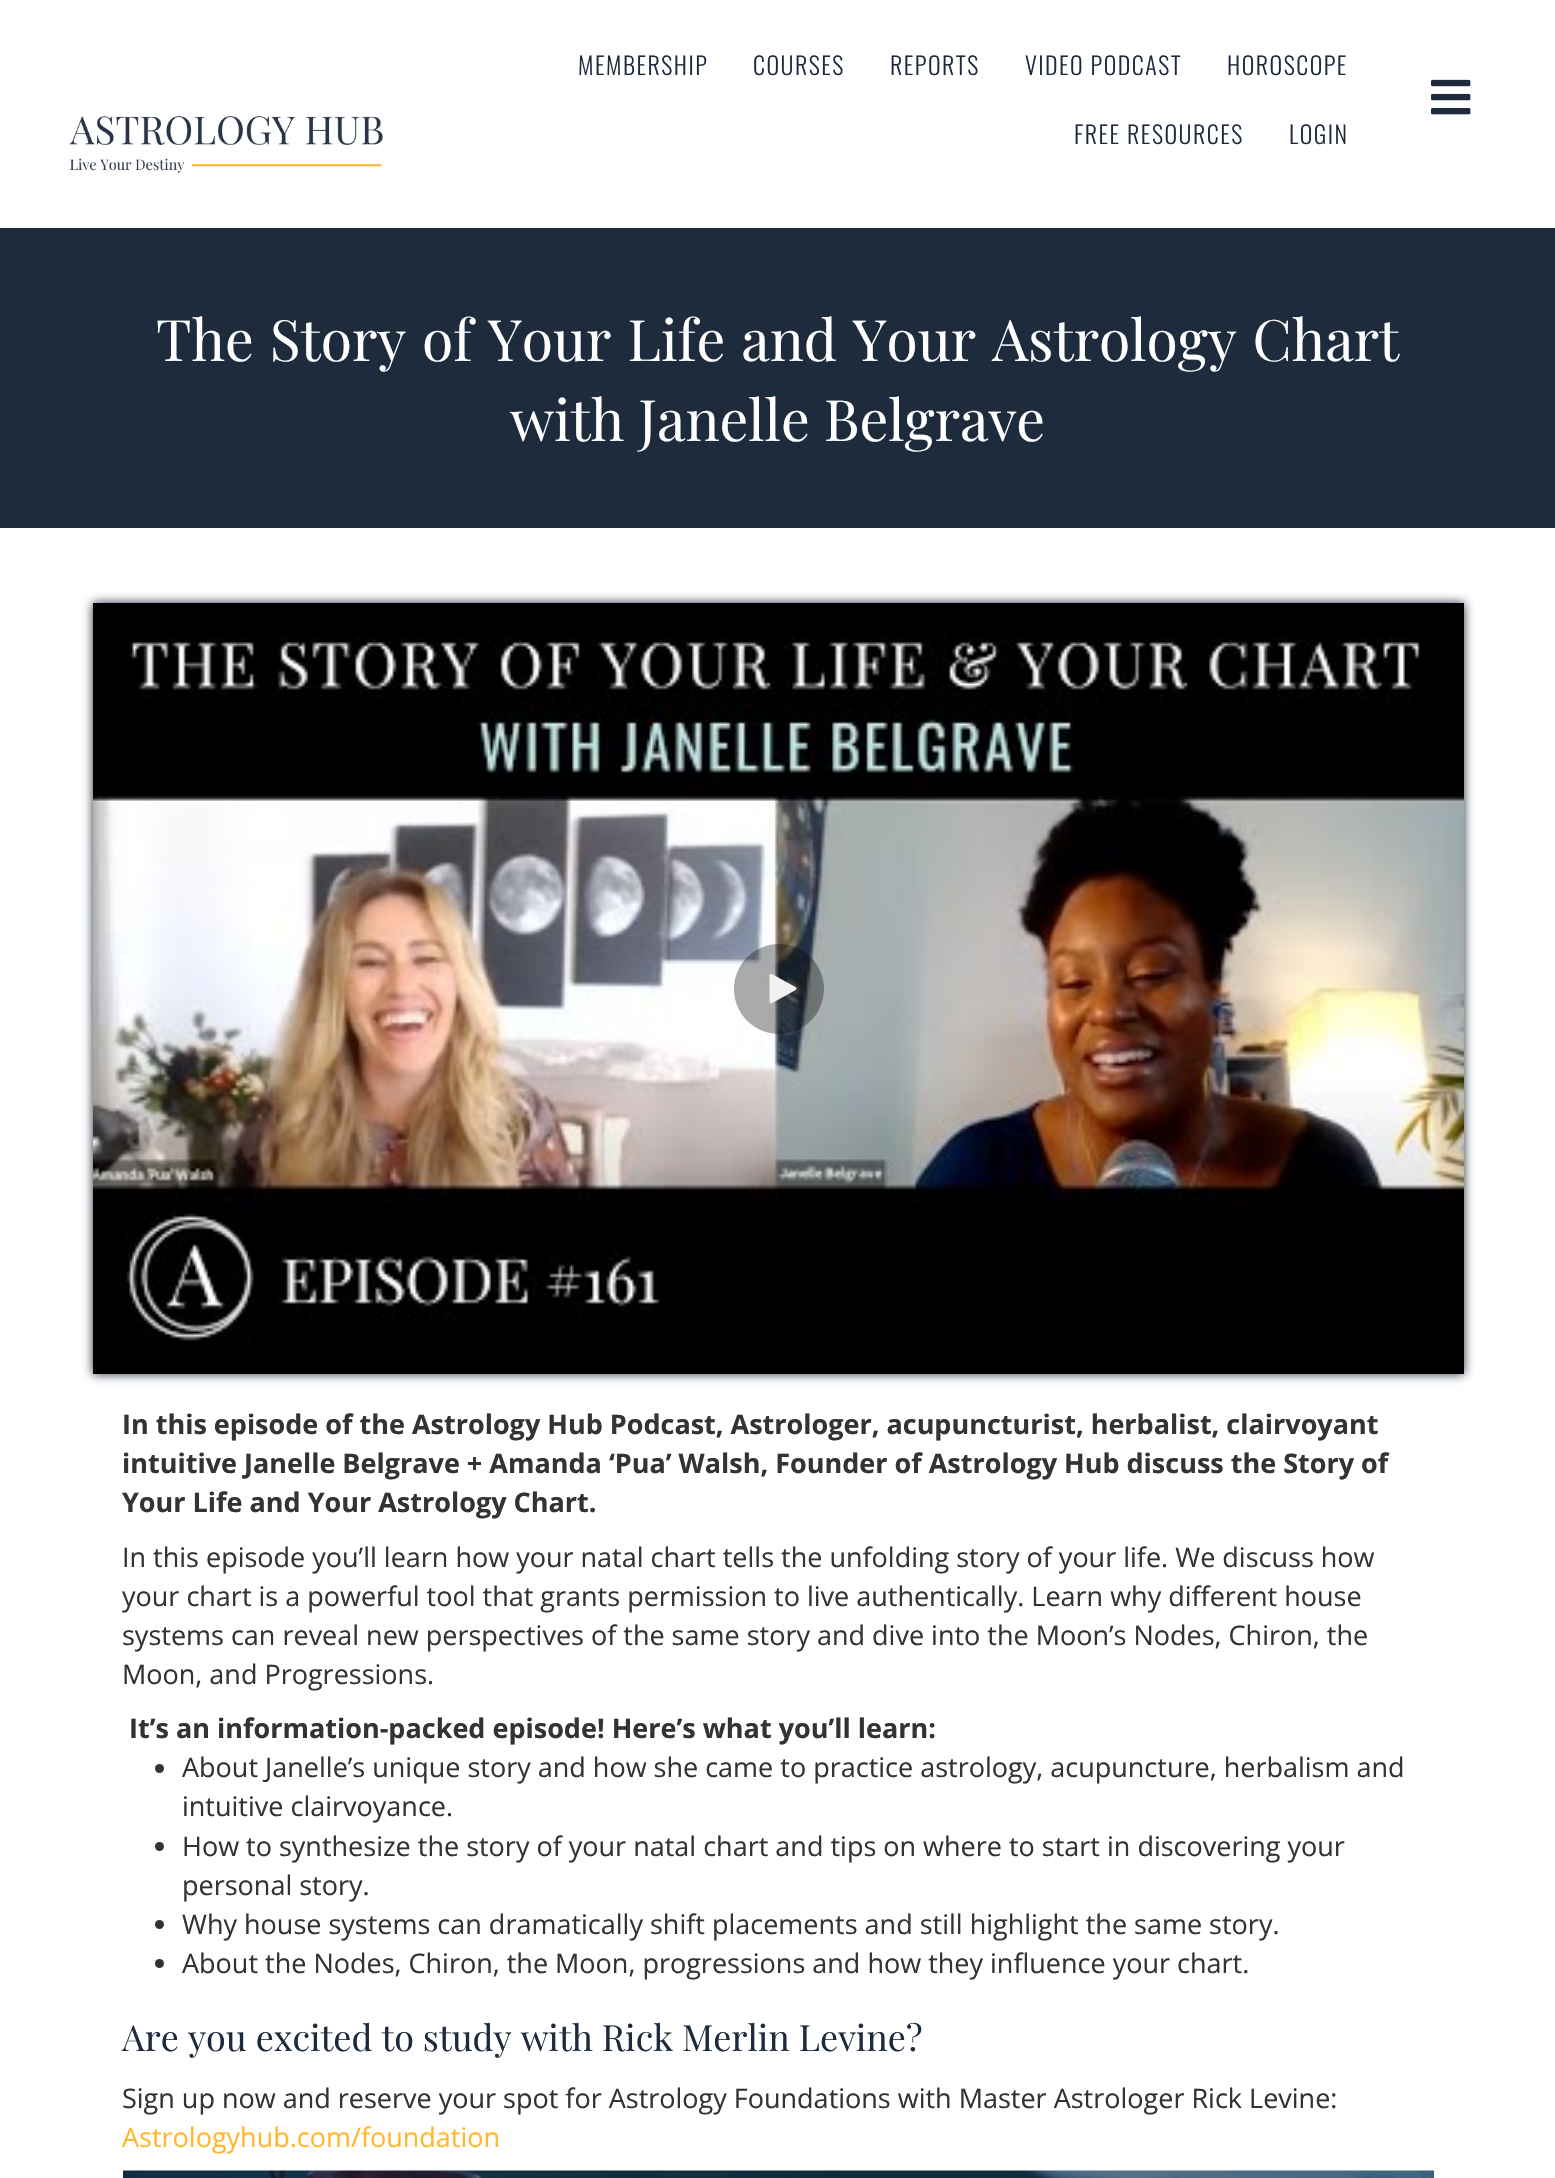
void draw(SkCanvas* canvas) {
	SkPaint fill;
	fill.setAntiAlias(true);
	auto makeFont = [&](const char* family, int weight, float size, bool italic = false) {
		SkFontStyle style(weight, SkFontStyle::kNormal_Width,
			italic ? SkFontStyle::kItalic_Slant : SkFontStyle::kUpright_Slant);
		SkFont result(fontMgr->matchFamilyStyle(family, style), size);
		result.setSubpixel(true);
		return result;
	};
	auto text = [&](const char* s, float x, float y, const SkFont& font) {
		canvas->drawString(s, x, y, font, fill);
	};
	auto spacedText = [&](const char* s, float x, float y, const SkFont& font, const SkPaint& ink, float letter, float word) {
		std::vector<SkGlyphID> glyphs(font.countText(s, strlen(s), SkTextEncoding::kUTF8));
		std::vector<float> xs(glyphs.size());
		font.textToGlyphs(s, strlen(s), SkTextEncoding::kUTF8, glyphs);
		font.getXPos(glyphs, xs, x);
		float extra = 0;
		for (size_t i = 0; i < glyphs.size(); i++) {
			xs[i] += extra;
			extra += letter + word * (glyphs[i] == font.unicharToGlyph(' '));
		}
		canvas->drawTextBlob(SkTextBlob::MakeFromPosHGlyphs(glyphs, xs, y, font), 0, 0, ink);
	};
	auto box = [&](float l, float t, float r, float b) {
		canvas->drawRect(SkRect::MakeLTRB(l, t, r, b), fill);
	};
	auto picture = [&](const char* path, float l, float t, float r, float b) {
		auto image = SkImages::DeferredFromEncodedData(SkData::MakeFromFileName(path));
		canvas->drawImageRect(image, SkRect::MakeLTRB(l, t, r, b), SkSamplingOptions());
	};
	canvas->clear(0xFFFFFFFF);
	picture("image0.png", 1431, 79, 1471, 115);
	picture("image1.png", 69, 116, 383, 173);
	fill.setColor(0xFF1E2B3D);
	box(0, 228, 1555, 528);
	fill.setMaskFilter(SkMaskFilter::MakeBlur(kNormal_SkBlurStyle, 5));
	canvas->drawRect(SkRect::MakeLTRB(93, 603, 1464, 1374), fill);
	fill.setMaskFilter(nullptr);
	fill.setColor(0xFF000000);
	box(93, 603, 1464, 1374);
	picture("image2.png", 93, 635, 1464, 1341);
	fill.setColor(0x54000000);
	canvas->drawCircle(779, 989, 45, fill);
	picture("image3.png", 769, 974, 797, 1004);
	fill.setColor(0xFF333333);
	canvas->drawCircle(159.5f, 1768.5f, 4.5f, fill);
	canvas->drawCircle(159.5f, 1846.5f, 4.5f, fill);
	canvas->drawCircle(159.5f, 1924.5f, 4.5f, fill);
	canvas->drawCircle(159.5f, 1963.5f, 4.5f, fill);
	picture("image4.png", 123, 2170, 1434, 2178);
	auto font1 = makeFont("Oswald", 300, 24);
	fill.setColor(0xFF1E2B3D);
	spacedText("MEMBERSHIP", 578, 75, font1, fill, 1.5f, 0);
	spacedText("COURSES", 753, 75, font1, fill, 1.5f, 0);
	spacedText("REPORTS", 890, 75, font1, fill, 1.5f, 0);
	spacedText("VIDEO PODCAST", 1025, 75, font1, fill, 1.5f, 0);
	spacedText("HOROSCOPE", 1227, 75, font1, fill, 1.5f, 0);
	spacedText("FREE RESOURCES", 1074, 144, font1, fill, 1.5f, 0);
	spacedText("LOGIN", 1289, 144, font1, fill, 1.5f, 0);
	auto font2 = makeFont("Playfair Display", 400, 57);
	fill.setColor(0xFFFFFFFF);
	spacedText("The Story of Your Life and Your Astrology Chart", 156, 361, font2, fill, 0, 1.75f);
	text("with Janelle Belgrave", 510, 441, font2);
	auto font3 = makeFont("Open Sans", 700, 27);
	fill.setColor(0xFF333333);
	text("In this episode of the Astrology Hub Podcast, Astrologer, acupuncturist, herbalist, clairvoyant", 122, 1434, font3);
	text("intuitive Janelle Belgrave + Amanda ‘Pua’ Walsh, Founder of Astrology Hub discuss the Story of", 122, 1473, font3);
	text("Your Life and Your Astrology Chart.", 122, 1512, font3);
	auto font4 = makeFont("Open Sans", 400, 27);
	text("In this episode you’ll learn how your natal chart tells the unfolding story of your life. We discuss how", 122, 1567, font4);
	text("your chart is a powerful tool that grants permission to live authentically. Learn why different house", 122, 1606, font4);
	text("systems can reveal new perspectives of the same story and dive into the Moon’s Nodes, Chiron, the", 122, 1645, font4);
	text("Moon, and Progressions.", 122, 1684, font4);
	text("It’s an information-packed episode! Here’s what you’ll learn:", 129, 1738, font3);
	text("About Janelle’s unique story and how she came to practice astrology, acupuncture, herbalism and", 182, 1777, font4);
	text("intuitive clairvoyance.", 182, 1816, font4);
	text("How to synthesize the story of your natal chart and tips on where to start in discovering your", 182, 1856, font4);
	text("personal story.", 182, 1895, font4);
	text("Why house systems can dramatically shift placements and still highlight the same story.", 182, 1934, font4);
	text("About the Nodes, Chiron, the Moon, progressions and how they influence your chart.", 182, 1973, font4);
	auto font5 = makeFont("Playfair Display", 400, 36);
	fill.setColor(0xFF1E2B3D);
	text("Are you excited to study with Rick Merlin Levine?", 122, 2051, font5);
	fill.setColor(0xFF333333);
	text("Sign up now and reserve your spot for Astrology Foundations with Master Astrologer Rick Levine:", 122, 2108, font4);
	fill.setColor(0xFFFFB72B);
	text("Astrologyhub.com/foundation", 122, 2147, font4);
}
